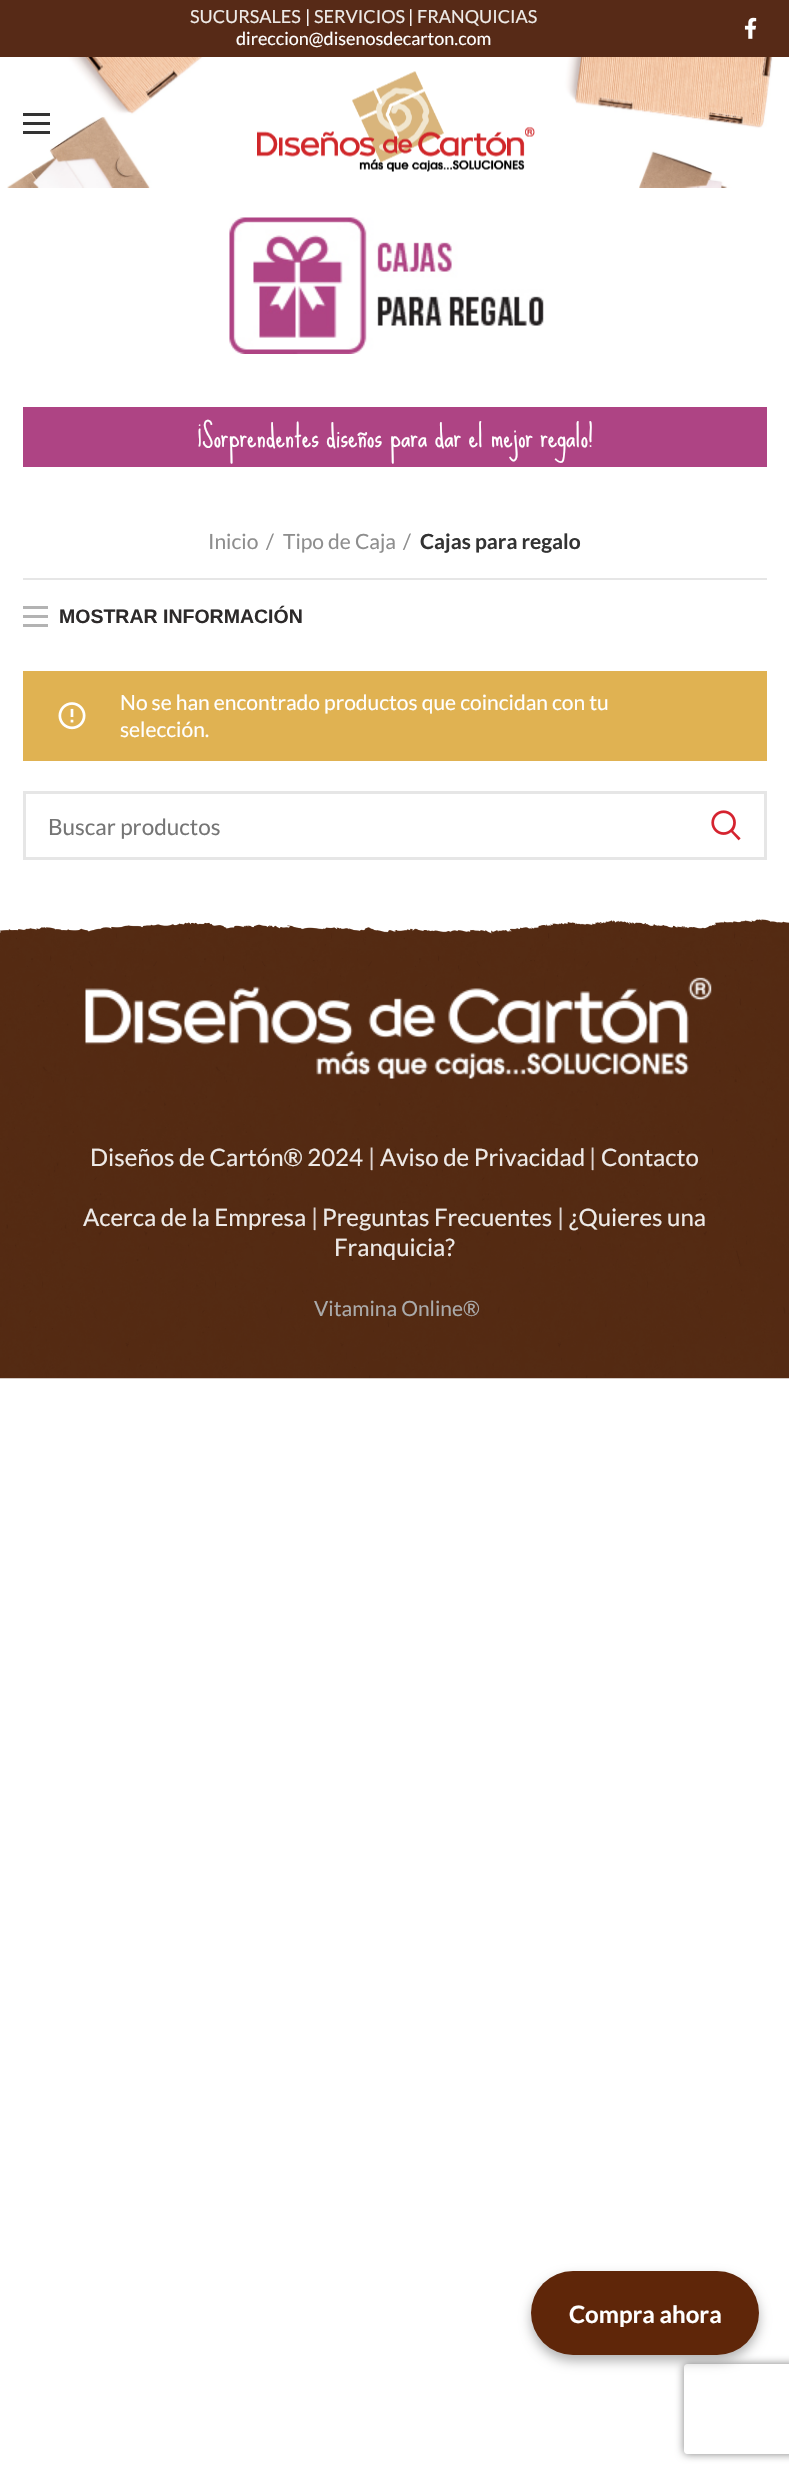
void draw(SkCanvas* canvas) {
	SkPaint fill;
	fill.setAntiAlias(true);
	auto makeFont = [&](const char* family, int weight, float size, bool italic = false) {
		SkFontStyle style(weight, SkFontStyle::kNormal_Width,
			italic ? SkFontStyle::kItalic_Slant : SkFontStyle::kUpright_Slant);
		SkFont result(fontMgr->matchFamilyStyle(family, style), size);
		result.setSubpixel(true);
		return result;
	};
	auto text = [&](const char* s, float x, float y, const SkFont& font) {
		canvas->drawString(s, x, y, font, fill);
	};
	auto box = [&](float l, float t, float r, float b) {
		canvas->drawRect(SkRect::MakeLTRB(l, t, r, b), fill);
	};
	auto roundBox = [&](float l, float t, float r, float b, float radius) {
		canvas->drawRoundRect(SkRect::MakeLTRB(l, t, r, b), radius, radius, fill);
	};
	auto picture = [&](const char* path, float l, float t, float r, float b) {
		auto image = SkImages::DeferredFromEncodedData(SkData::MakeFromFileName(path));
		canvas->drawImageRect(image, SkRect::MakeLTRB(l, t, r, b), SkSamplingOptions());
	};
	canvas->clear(0xFFFFFFFF);
	fill.setColor(0xFF572A17);
	box(0, 0, 789, 57);
	picture("image0.png", 744, 17, 757, 39);
	picture("image1.png", 7, 57, 773, 188);
	fill.setColor(0xFF333333);
	box(23, 122, 50, 125);
	box(23, 113, 50, 116);
	box(23, 131, 50, 134);
	picture("image2.png", 257, 71, 535, 172);
	picture("image3.png", 229, 217, 544, 354);
	fill.setColor(0xFFAE4484);
	box(23, 407, 767, 467);
	fill.setColor(0xFFE6E6E6);
	box(23, 578, 767, 580);
	fill.setColor(0xFFB3B3B3);
	box(23, 615, 48, 618);
	box(23, 606, 48, 609);
	box(23, 624, 48, 627);
	fill.setColor(0xFFE0B252);
	box(23, 671, 767, 761);
	picture("image4.png", 58, 702, 86, 730);
	fill.setStyle(SkPaint::kStroke_Style);
	fill.setStrokeWidth(3);
	fill.setColor(0xFFE6E6E6);
	canvas->drawRect(SkRect::MakeLTRB(24.5f, 792.5f, 765.5f, 858.5f), fill);
	picture("image5.png", 711, 810, 741, 841);
	picture("image6.png", 0, 919, 789, 1379);
	picture("image7.png", 85, 977, 712, 1079);
	fill.setStyle(SkPaint::kFill_Style);
	fill.setColor(0x4D000000);
	fill.setMaskFilter(SkMaskFilter::MakeBlur(kNormal_SkBlurStyle, 6));
	canvas->drawRoundRect(SkRect::MakeLTRB(531, 2277, 759, 2361), 42, 42, fill);
	fill.setMaskFilter(nullptr);
	canvas->save();
	canvas->clipPath(SkPathBuilder(SkPathFillType::kEvenOdd).moveTo(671, 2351).lineTo(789, 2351).lineTo(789, 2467).lineTo(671, 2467).close().moveTo(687, 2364).lineTo(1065, 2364).cubicTo(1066.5f, 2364, 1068, 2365.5f, 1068, 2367).lineTo(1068, 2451).cubicTo(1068, 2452.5f, 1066.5f, 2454, 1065, 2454).lineTo(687, 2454).cubicTo(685.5f, 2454, 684, 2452.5f, 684, 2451).lineTo(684, 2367).cubicTo(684, 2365.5f, 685.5f, 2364, 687, 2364).close().detach(), true);
	fill.setColor(0xFF808080);
	fill.setMaskFilter(SkMaskFilter::MakeBlur(kNormal_SkBlurStyle, 4));
	canvas->drawRoundRect(SkRect::MakeLTRB(684, 2364, 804, 2454), 3, 3, fill);
	fill.setMaskFilter(nullptr);
	canvas->restore();
	fill.setColor(0xFF5F2609);
	roundBox(531, 2271, 759, 2355, 42);
	auto font1 = makeFont("Lato", 400, 18);
	fill.setColor(0xFFEEEAE7);
	text("SUCURSALES", 190, 23, font1);
	fill.setColor(0xFFFFFFFF);
	text("|", 305, 23, font1);
	fill.setColor(0xFFEEEAE7);
	text("SERVICIOS", 314, 23, font1);
	fill.setColor(0xFFFFFFFF);
	text("|", 408, 23, font1);
	fill.setColor(0xFFEEEAE7);
	text("FRANQUICIAS", 417, 23, font1);
	fill.setColor(0xFFFFFFFF);
	text("direccion@disenosdecarton.com", 236, 45, font1);
	auto font2 = makeFont("Sue Ellen Francisco", 400, 30);
	text("¡Sorprendentes diseños para dar el mejor regalo!", 197, 447, font2);
	auto font3 = makeFont("Lato", 400, 21);
	fill.setColor(0xFF8E8E8E);
	text("Inicio", 208, 549, font3);
	text("/", 266, 549, font3);
	text("Tipo de Caja", 283, 549, font3);
	text("/", 403, 549, font3);
	auto font4 = makeFont("Lato", 700, 21);
	fill.setColor(0xFF333333);
	text("Cajas para regalo", 420, 549, font4);
	auto font5 = makeFont("Liberation Sans", 700, 19.5f);
	fill.setColor(0xFF2D2A2A);
	text("MOSTRAR INFORMACIÓN", 59, 623, font5);
	fill.setColor(0xFFFFFFFF);
	text("No se han encontrado productos que coincidan con tu", 120, 710, font3);
	text("selección.", 120, 737, font3);
	auto font6 = makeFont("Lato", 400, 22.5f);
	fill.setColor(0xFF757575);
	text("Buscar productos", 48, 835, font6);
	auto font7 = makeFont("Lato", 400, 24);
	fill.setColor(0xFFEEEAE7);
	text("Diseños de Cartón® 2024", 90, 1166, font7);
	fill.setColor(0xFFDDD4D0);
	text("|", 368, 1166, font7);
	fill.setColor(0xFFEEEAE7);
	text("Aviso de Privacidad", 380, 1166, font7);
	fill.setColor(0xFFDDD4D0);
	text("|", 589, 1166, font7);
	fill.setColor(0xFFEEEAE7);
	text("Contacto", 601, 1166, font7);
	text("Acerca de la Empresa", 83, 1226, font7);
	fill.setColor(0xFFDDD4D0);
	text("|", 311, 1226, font7);
	fill.setColor(0xFFEEEAE7);
	text("Preguntas Frecuentes", 322, 1226, font7);
	fill.setColor(0xFFDDD4D0);
	text("|", 557, 1226, font7);
	fill.setColor(0xFFEEEAE7);
	text("¿Quieres una", 569, 1226, font7);
	text("Franquicia?", 334, 1256, font7);
	fill.setColor(0xFFAAAAAA);
	text("Vitamina Online®", 314, 1316, font3);
	auto font8 = makeFont("Lato", 700, 24);
	fill.setColor(0xFFFFFFFF);
	text("Compra ahora", 569, 2323, font8);
}
